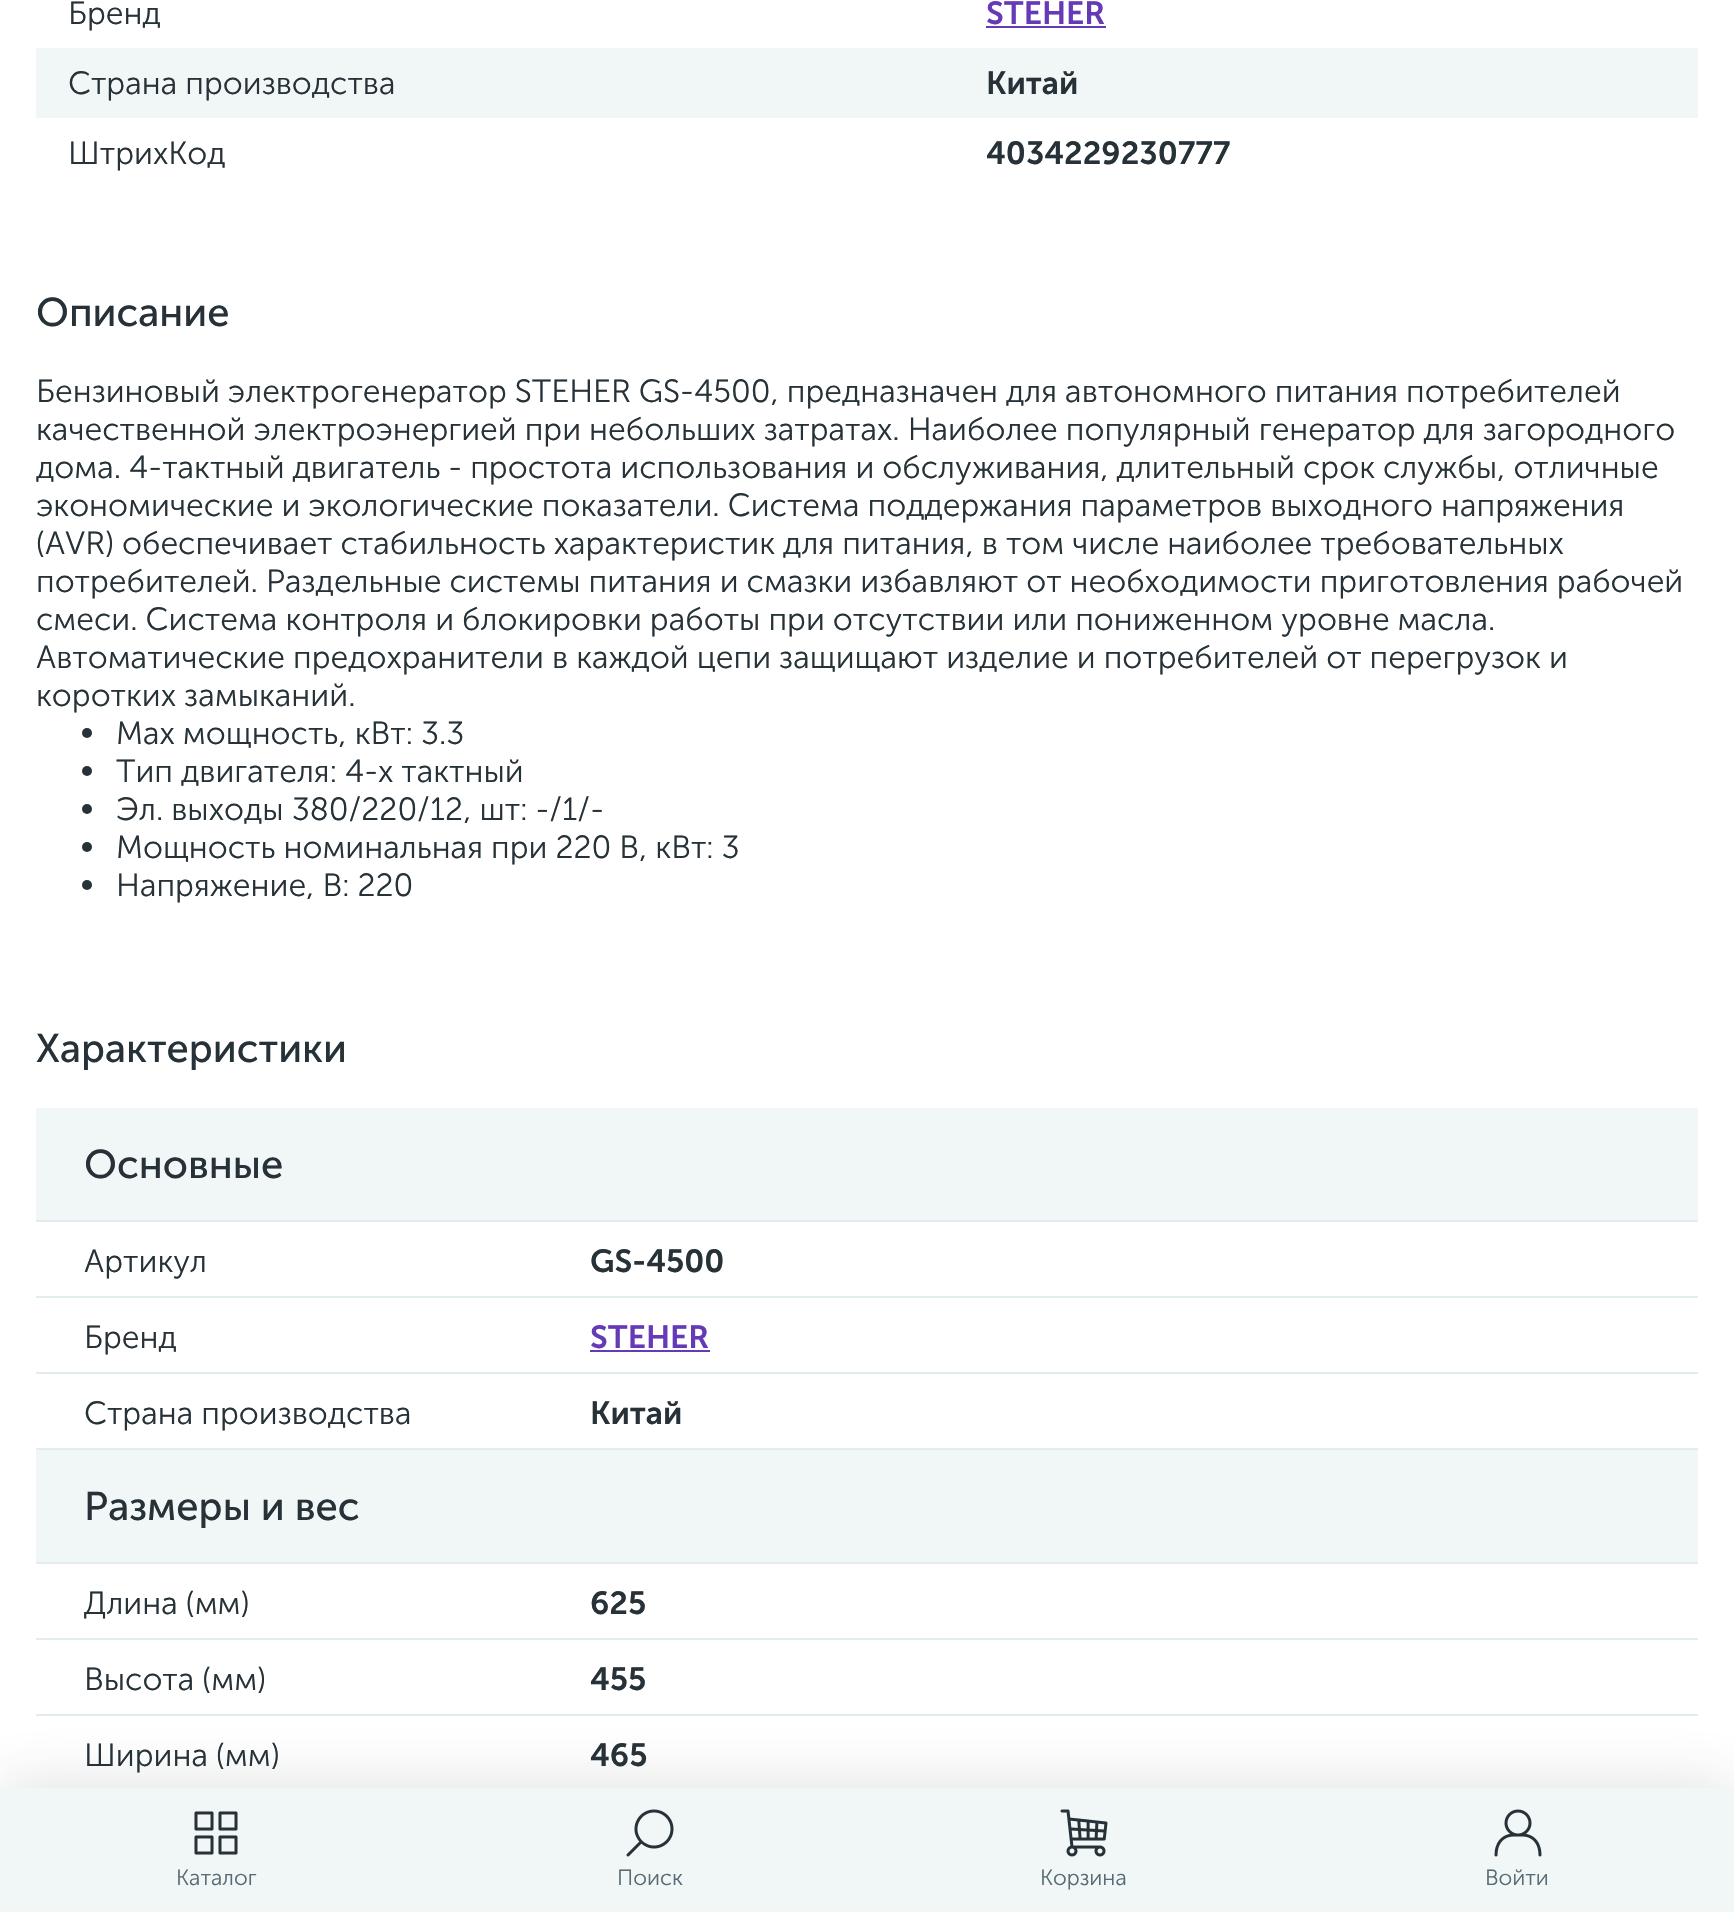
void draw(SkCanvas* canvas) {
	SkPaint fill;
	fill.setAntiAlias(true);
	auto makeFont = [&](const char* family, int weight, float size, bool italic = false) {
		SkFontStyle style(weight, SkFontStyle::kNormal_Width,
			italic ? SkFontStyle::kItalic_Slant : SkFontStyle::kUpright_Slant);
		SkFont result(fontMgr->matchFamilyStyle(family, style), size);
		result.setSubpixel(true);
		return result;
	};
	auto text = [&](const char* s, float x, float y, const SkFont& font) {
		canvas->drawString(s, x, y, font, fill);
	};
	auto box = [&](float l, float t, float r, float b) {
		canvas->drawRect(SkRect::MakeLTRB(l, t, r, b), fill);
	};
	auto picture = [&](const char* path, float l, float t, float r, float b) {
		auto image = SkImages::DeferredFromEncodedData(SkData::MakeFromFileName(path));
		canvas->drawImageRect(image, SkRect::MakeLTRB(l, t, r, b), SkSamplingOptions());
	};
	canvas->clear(0xFFFFFFFF);
	fill.setColor(0xFF6639B6);
	box(986, 26, 1106, 28);
	fill.setColor(0xFFF1F6F7);
	box(36, 48, 1698, 118);
	fill.setColor(0xFF263238);
	canvas->drawCircle(87, 733, 5, fill);
	canvas->drawCircle(87, 771, 5, fill);
	canvas->drawCircle(87, 809, 5, fill);
	canvas->drawCircle(87, 847, 5, fill);
	canvas->drawCircle(87, 885, 5, fill);
	fill.setColor(0xFFF1F6F7);
	box(36, 1108, 1698, 1220);
	fill.setColor(0xFFE3ECEF);
	box(36, 1220, 1698, 1222);
	box(36, 1296, 1698, 1298);
	box(36, 1372, 1698, 1374);
	fill.setColor(0xFF6639B6);
	box(590, 1350, 710, 1352);
	fill.setColor(0xFFE3ECEF);
	box(36, 1448, 1698, 1450);
	fill.setColor(0xFFF1F6F7);
	box(36, 1450, 1698, 1562);
	fill.setColor(0xFFE3ECEF);
	box(36, 1562, 1698, 1564);
	box(36, 1638, 1698, 1640);
	box(36, 1714, 1698, 1716);
	fill.setColor(0x29263238);
	fill.setMaskFilter(SkMaskFilter::MakeBlur(kNormal_SkBlurStyle, 32));
	canvas->drawRect(SkRect::MakeLTRB(0, 1788, 1734, 1912), fill);
	fill.setMaskFilter(nullptr);
	fill.setColor(0xFFF1F6F7);
	box(0, 1788, 1734, 1912);
	picture("image0.png", 194, 1811, 238, 1855);
	picture("image1.png", 626, 1809, 674, 1857);
	picture("image2.png", 1060, 1809, 1108, 1857);
	picture("image3.png", 1494, 1809, 1542, 1857);
	auto font1 = makeFont("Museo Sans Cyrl", 300, 32);
	fill.setColor(0xFF263238);
	text("Бренд", 68, 24, font1);
	auto font2 = makeFont("Museo Sans Cyrl", 600, 32);
	fill.setColor(0xFF6639B6);
	text("STEHER", 986, 24, font2);
	fill.setColor(0xFF263238);
	text("Страна производства", 68, 94, font1);
	text("Китай", 986, 94, font2);
	text("ШтрихКод", 68, 164, font1);
	text("4034229230777", 986, 164, font2);
	auto font3 = makeFont("Museo Sans Cyrl", 400, 40);
	text("Описание", 36, 326, font3);
	text("Бензиновый электрогенератор STEHER GS-4500, предназначен для автономного питания потребителей", 36, 402, font1);
	text("качественной электроэнергией при небольших затратах. Наиболее популярный генератор для загородного", 36, 440, font1);
	text("дома. 4-тактный двигатель - простота использования и обслуживания, длительный срок службы, отличные", 36, 478, font1);
	text("экономические и экологические показатели. Система поддержания параметров выходного напряжения", 36, 516, font1);
	text("(AVR) обеспечивает стабильность характеристик для питания, в том числе наиболее требовательных", 36, 554, font1);
	text("потребителей. Раздельные системы питания и смазки избавляют от необходимости приготовления рабочей", 36, 592, font1);
	text("смеси. Система контроля и блокировки работы при отсутствии или пониженном уровне масла.", 36, 630, font1);
	text("Автоматические предохранители в каждой цепи защищают изделие и потребителей от перегрузок и", 36, 668, font1);
	text("коротких замыканий.", 36, 706, font1);
	text("Max мощность, кВт: 3.3", 116, 744, font1);
	text("Тип двигателя: 4-х тактный", 116, 782, font1);
	text("Эл. выходы 380/220/12, шт: -/1/-", 116, 820, font1);
	text("Мощность номинальная при 220 В, кВт: 3", 116, 858, font1);
	text("Напряжение, В: 220", 116, 896, font1);
	text("Характеристики", 36, 1062, font3);
	text("Основные", 84, 1178, font3);
	text("Артикул", 84, 1272, font1);
	text("GS-4500", 590, 1272, font2);
	text("Бренд", 84, 1348, font1);
	fill.setColor(0xFF6639B6);
	text("STEHER", 590, 1348, font2);
	fill.setColor(0xFF263238);
	text("Страна производства", 84, 1424, font1);
	text("Китай", 590, 1424, font2);
	text("Размеры и вес", 84, 1520, font3);
	text("Длина (мм)", 84, 1614, font1);
	text("625", 590, 1614, font2);
	text("Высота (мм)", 84, 1690, font1);
	text("455", 590, 1690, font2);
	text("Ширина (мм)", 84, 1766, font1);
	text("465", 590, 1766, font2);
	auto font4 = makeFont("Museo Sans Cyrl", 300, 22);
	fill.setColor(0xFF566B75);
	text("Каталог", 176, 1885, font4);
	text("Поиск", 617, 1885, font4);
	text("Корзина", 1040, 1885, font4);
	text("Войти", 1485, 1885, font4);
}
